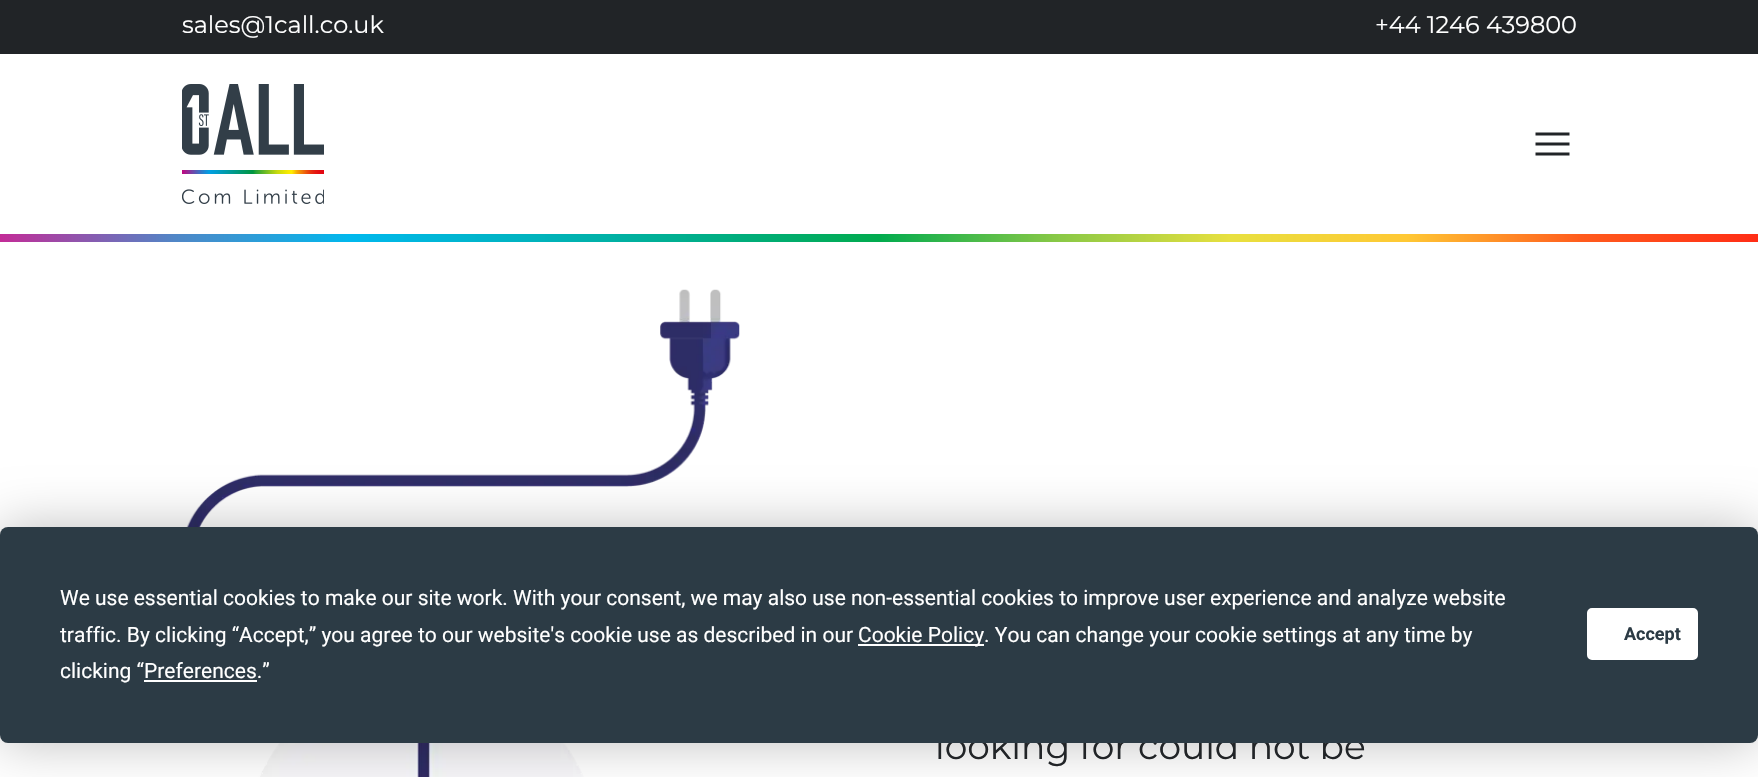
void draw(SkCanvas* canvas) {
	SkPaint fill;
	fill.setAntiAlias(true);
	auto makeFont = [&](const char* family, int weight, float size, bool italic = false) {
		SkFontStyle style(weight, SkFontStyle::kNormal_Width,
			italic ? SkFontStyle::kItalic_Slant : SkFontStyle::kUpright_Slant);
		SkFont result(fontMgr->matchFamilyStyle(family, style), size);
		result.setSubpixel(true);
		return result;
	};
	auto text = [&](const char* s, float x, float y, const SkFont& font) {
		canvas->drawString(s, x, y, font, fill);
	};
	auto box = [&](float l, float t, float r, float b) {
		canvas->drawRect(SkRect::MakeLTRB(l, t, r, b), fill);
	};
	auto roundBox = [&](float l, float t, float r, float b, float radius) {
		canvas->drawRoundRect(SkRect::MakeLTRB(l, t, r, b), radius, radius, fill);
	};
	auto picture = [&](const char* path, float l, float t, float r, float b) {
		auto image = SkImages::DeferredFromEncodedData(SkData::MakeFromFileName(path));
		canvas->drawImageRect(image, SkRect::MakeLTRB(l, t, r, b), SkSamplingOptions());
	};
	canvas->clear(0xFFFFFFFF);
	fill.setColor(0xFF212427);
	box(0, 0, 1758, 54);
	picture("image0.png", 182, 84, 324, 204);
	canvas->drawPath(SkPathBuilder().moveTo(1535.5f, 155.5f).lineTo(1535.5f, 152.5f).lineTo(1569.5f, 152.5f).lineTo(1569.5f, 155.5f).close().moveTo(1535.5f, 145.5f).lineTo(1535.5f, 142.5f).lineTo(1569.5f, 142.5f).lineTo(1569.5f, 145.5f).close().moveTo(1535.5f, 135.5f).lineTo(1535.5f, 132.5f).lineTo(1569.5f, 132.5f).lineTo(1569.5f, 135.5f).close().detach(), fill);
	{
		const SkColor colors[] = {0xFFC32C97, 0xFF5087C7, 0xFF00B8ED, 0xFF00B3BF, 0xFF00AE88, 0xFF01AB4E, 0xFF87C846, 0xFFE8E03F, 0xFFFFC834, 0xFFFF5B1D, 0xFFFF2D16};
		const float stops[] = {0, 0.1f, 0.2f, 0.3f, 0.4f, 0.5f, 0.6f, 0.7f, 0.8f, 0.9f, 1};
		const SkPoint ends[] = {{0, 238}, {1758, 238}};
		fill.setShader(SkGradientShader::MakeLinear(ends, colors, stops, 11, SkTileMode::kClamp));
		fill.setAlpha(255);
	}
	box(0, 234, 1758, 242);
	picture("image1.png", 186, 289, 740, 777);
	fill.setShader(nullptr);
	fill.setColor(0x40000000);
	fill.setMaskFilter(SkMaskFilter::MakeBlur(kNormal_SkBlurStyle, 26));
	canvas->drawRoundRect(SkRect::MakeLTRB(0, 527, 1758, 743), 8, 8, fill);
	fill.setMaskFilter(nullptr);
	auto font1 = makeFont("Montserrat", 400, 24);
	fill.setColor(0xFFFFFFFF);
	text("sales@1call.co.uk", 182, 33, font1);
	text("+44 1246 439800", 1375, 33, font1);
	auto font2 = makeFont("Montserrat", 400, 36);
	fill.setColor(0xFF212427);
	text("looking for could not be", 935, 759, font2);
	fill.setColor(0xFF2C3B45);
	roundBox(0, 527, 1758, 743, 8);
	auto font3 = makeFont("Roboto", 400, 21);
	fill.setColor(0xFFFFFFFF);
	text("We use essential cookies to make our site work. With your consent, we may also use non-essential cookies to improve user experience and analyze website", 60, 605, font3);
	text("traffic. By clicking “Accept,” you agree to our website's cookie use as described in our", 60, 642, font3);
	box(858, 644, 984, 646);
	text("Cookie Policy. You can change your cookie settings at any time by", 858, 642, font3);
	text("clicking “Preferences.”", 60, 678, font3);
	box(144, 680, 257, 682);
	canvas->drawRoundRect(SkRect::MakeLTRB(1588, 609, 1697, 659), 4, 4, fill);
	fill.setStyle(SkPaint::kStroke_Style);
	fill.setStrokeWidth(2);
	canvas->drawRoundRect(SkRect::MakeLTRB(1588, 609, 1697, 659), 4, 4, fill);
	auto font4 = makeFont("Roboto", 700, 18);
	fill.setStyle(SkPaint::kFill_Style);
	fill.setColor(0xFF2C3B45);
	text("Accept", 1624, 640, font4);
}
